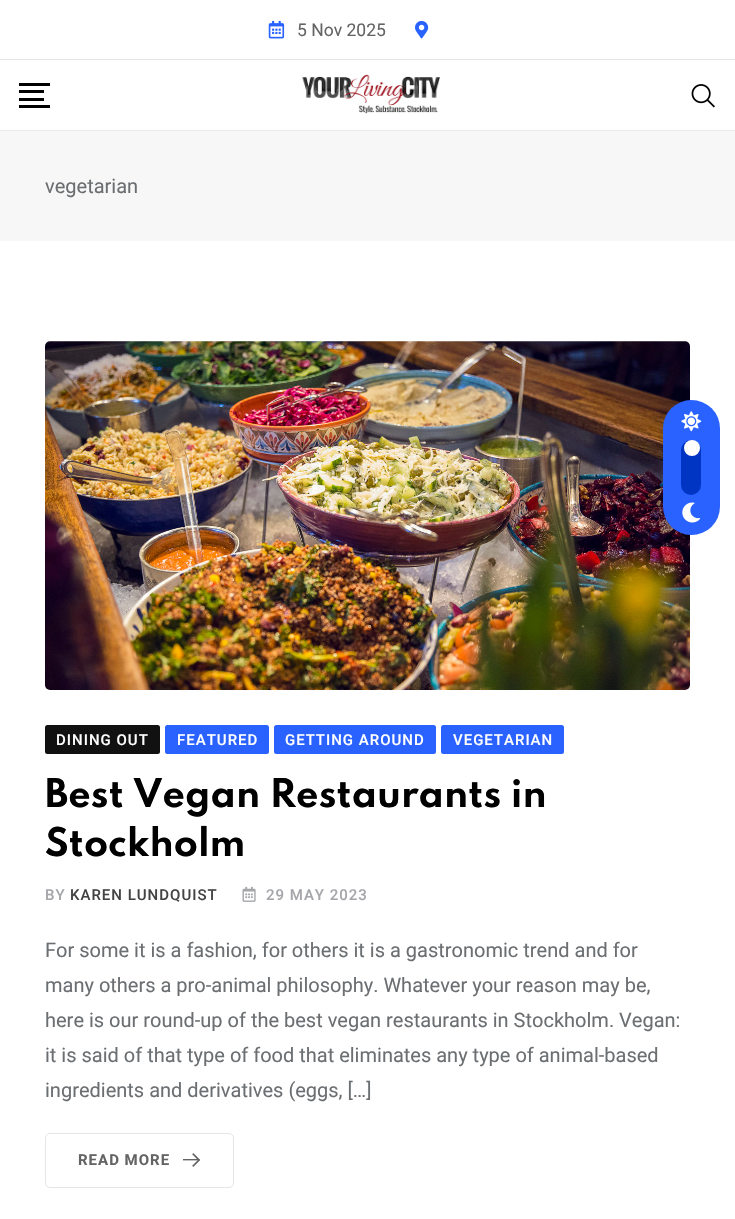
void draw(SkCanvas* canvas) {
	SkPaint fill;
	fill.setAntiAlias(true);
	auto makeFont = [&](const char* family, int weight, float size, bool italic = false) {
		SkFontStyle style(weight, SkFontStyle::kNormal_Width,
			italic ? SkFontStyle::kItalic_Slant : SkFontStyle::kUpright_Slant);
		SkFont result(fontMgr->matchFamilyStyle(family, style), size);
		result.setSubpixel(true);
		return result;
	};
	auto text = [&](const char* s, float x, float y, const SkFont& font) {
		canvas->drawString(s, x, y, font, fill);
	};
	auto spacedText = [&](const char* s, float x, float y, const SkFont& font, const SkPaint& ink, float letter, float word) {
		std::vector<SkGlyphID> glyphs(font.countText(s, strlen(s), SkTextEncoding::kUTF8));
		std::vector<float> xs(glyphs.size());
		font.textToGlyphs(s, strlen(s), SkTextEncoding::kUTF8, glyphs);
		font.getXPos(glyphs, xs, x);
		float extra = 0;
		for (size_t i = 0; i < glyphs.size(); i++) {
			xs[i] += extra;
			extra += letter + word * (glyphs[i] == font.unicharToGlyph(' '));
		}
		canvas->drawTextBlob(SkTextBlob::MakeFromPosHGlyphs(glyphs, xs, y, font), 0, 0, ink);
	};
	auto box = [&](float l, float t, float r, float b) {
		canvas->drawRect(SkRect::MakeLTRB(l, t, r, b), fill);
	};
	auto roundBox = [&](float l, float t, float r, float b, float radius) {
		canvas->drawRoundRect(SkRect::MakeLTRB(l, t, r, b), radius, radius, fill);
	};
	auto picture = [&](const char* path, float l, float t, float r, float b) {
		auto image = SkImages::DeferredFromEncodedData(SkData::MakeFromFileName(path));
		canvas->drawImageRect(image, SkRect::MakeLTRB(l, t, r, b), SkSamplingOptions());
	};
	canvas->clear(0xFFFFFFFF);
	fill.setColor(0xFFE5E5E5);
	box(0, 59, 735, 60);
	picture("image0.png", 268, 20, 285, 39);
	picture("image1.png", 415, 20, 429, 39);
	fill.setColor(0xFFE9E9E9);
	box(0, 130, 735, 131);
	fill.setColor(0xFF000000);
	box(19, 83, 50, 86);
	box(19, 90, 44, 93);
	box(19, 98, 44, 101);
	box(19, 105, 50, 108);
	picture("image2.png", 302, 74, 440, 114);
	picture("image3.png", 691, 84, 715, 108);
	fill.setColor(0xFFF7F7F7);
	box(0, 131, 735, 241);
	picture("image4.png", 45, 341, 690, 690);
	fill.setColor(0xFF111111);
	roundBox(45, 725, 160, 754, 2.5f);
	fill.setColor(0xFF2962FF);
	roundBox(165, 725, 269, 754, 2.5f);
	roundBox(274, 725, 436, 754, 2.5f);
	roundBox(441, 725, 564, 754, 2.5f);
	picture("image5.png", 242, 886, 256, 902);
	fill.setStyle(SkPaint::kStroke_Style);
	fill.setStrokeWidth(1);
	fill.setColor(0xFFE5E5E5);
	canvas->drawRoundRect(SkRect::MakeLTRB(45.5f, 1133.5f, 233.5f, 1187.5f), 4.5f, 4.5f, fill);
	picture("image6.png", 183, 1153, 200, 1167);
	fill.setStyle(SkPaint::kFill_Style);
	fill.setColor(0xFF2962FF);
	roundBox(663, 400, 720, 535, 28.5f);
	picture("image7.png", 681, 411, 702, 432);
	fill.setColor(0xFF0034C2);
	roundBox(681, 440, 701, 495, 10);
	fill.setColor(0xFFFFFFFF);
	canvas->drawCircle(692, 448, 8, fill);
	picture("image8.png", 682, 502, 701, 523);
	auto font1 = makeFont("Roboto", 400, 17.5f);
	fill.setColor(0xFF646464);
	text("5 Nov 2025", 297, 36, font1);
	auto font2 = makeFont("Roboto", 400, 20);
	fill.setColor(0xFF6C6F72);
	text("vegetarian", 45, 193, font2);
	auto font3 = makeFont("Roboto", 500, 15);
	fill.setColor(0xFFFFFFFF);
	spacedText("DINING OUT", 56, 745, font3, fill, 1, 0);
	spacedText("FEATURED", 177, 745, font3, fill, 1, 0);
	spacedText("GETTING AROUND", 285, 745, font3, fill, 1, 0);
	spacedText("VEGETARIAN", 453, 745, font3, fill, 1, 0);
	auto font4 = makeFont("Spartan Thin", 700, 35);
	fill.setColor(0xFF000000);
	text("Best Vegan Restaurants in", 45, 807, font4);
	text("Stockholm", 45, 856, font4);
	fill.setColor(0xFFA5A6AA);
	spacedText("BY", 45, 900, font3, fill, 1, 0);
	fill.setColor(0xFF444444);
	spacedText("KAREN LUNDQUIST", 70, 900, font3, fill, 1, 0);
	fill.setColor(0xFFA5A6AA);
	spacedText("29 MAY 2023", 266, 900, font3, fill, 1, 0);
	fill.setColor(0xFF6C6F72);
	text("For some it is a fashion, for others it is a gastronomic trend and for", 45, 957, font2);
	text("many others a pro-animal philosophy. Whatever your reason may be,", 45, 992, font2);
	text("here is our round-up of the best vegan restaurants in Stockholm. Vegan:", 45, 1027, font2);
	text("it is said of that type of food that eliminates any type of animal-based", 45, 1062, font2);
	text("ingredients and derivatives (eggs, […]", 45, 1097, font2);
	auto font5 = makeFont("Roboto", 700, 15);
	fill.setColor(0xFF646464);
	spacedText("READ MORE", 78, 1165, font5, fill, 1, 0);
}
